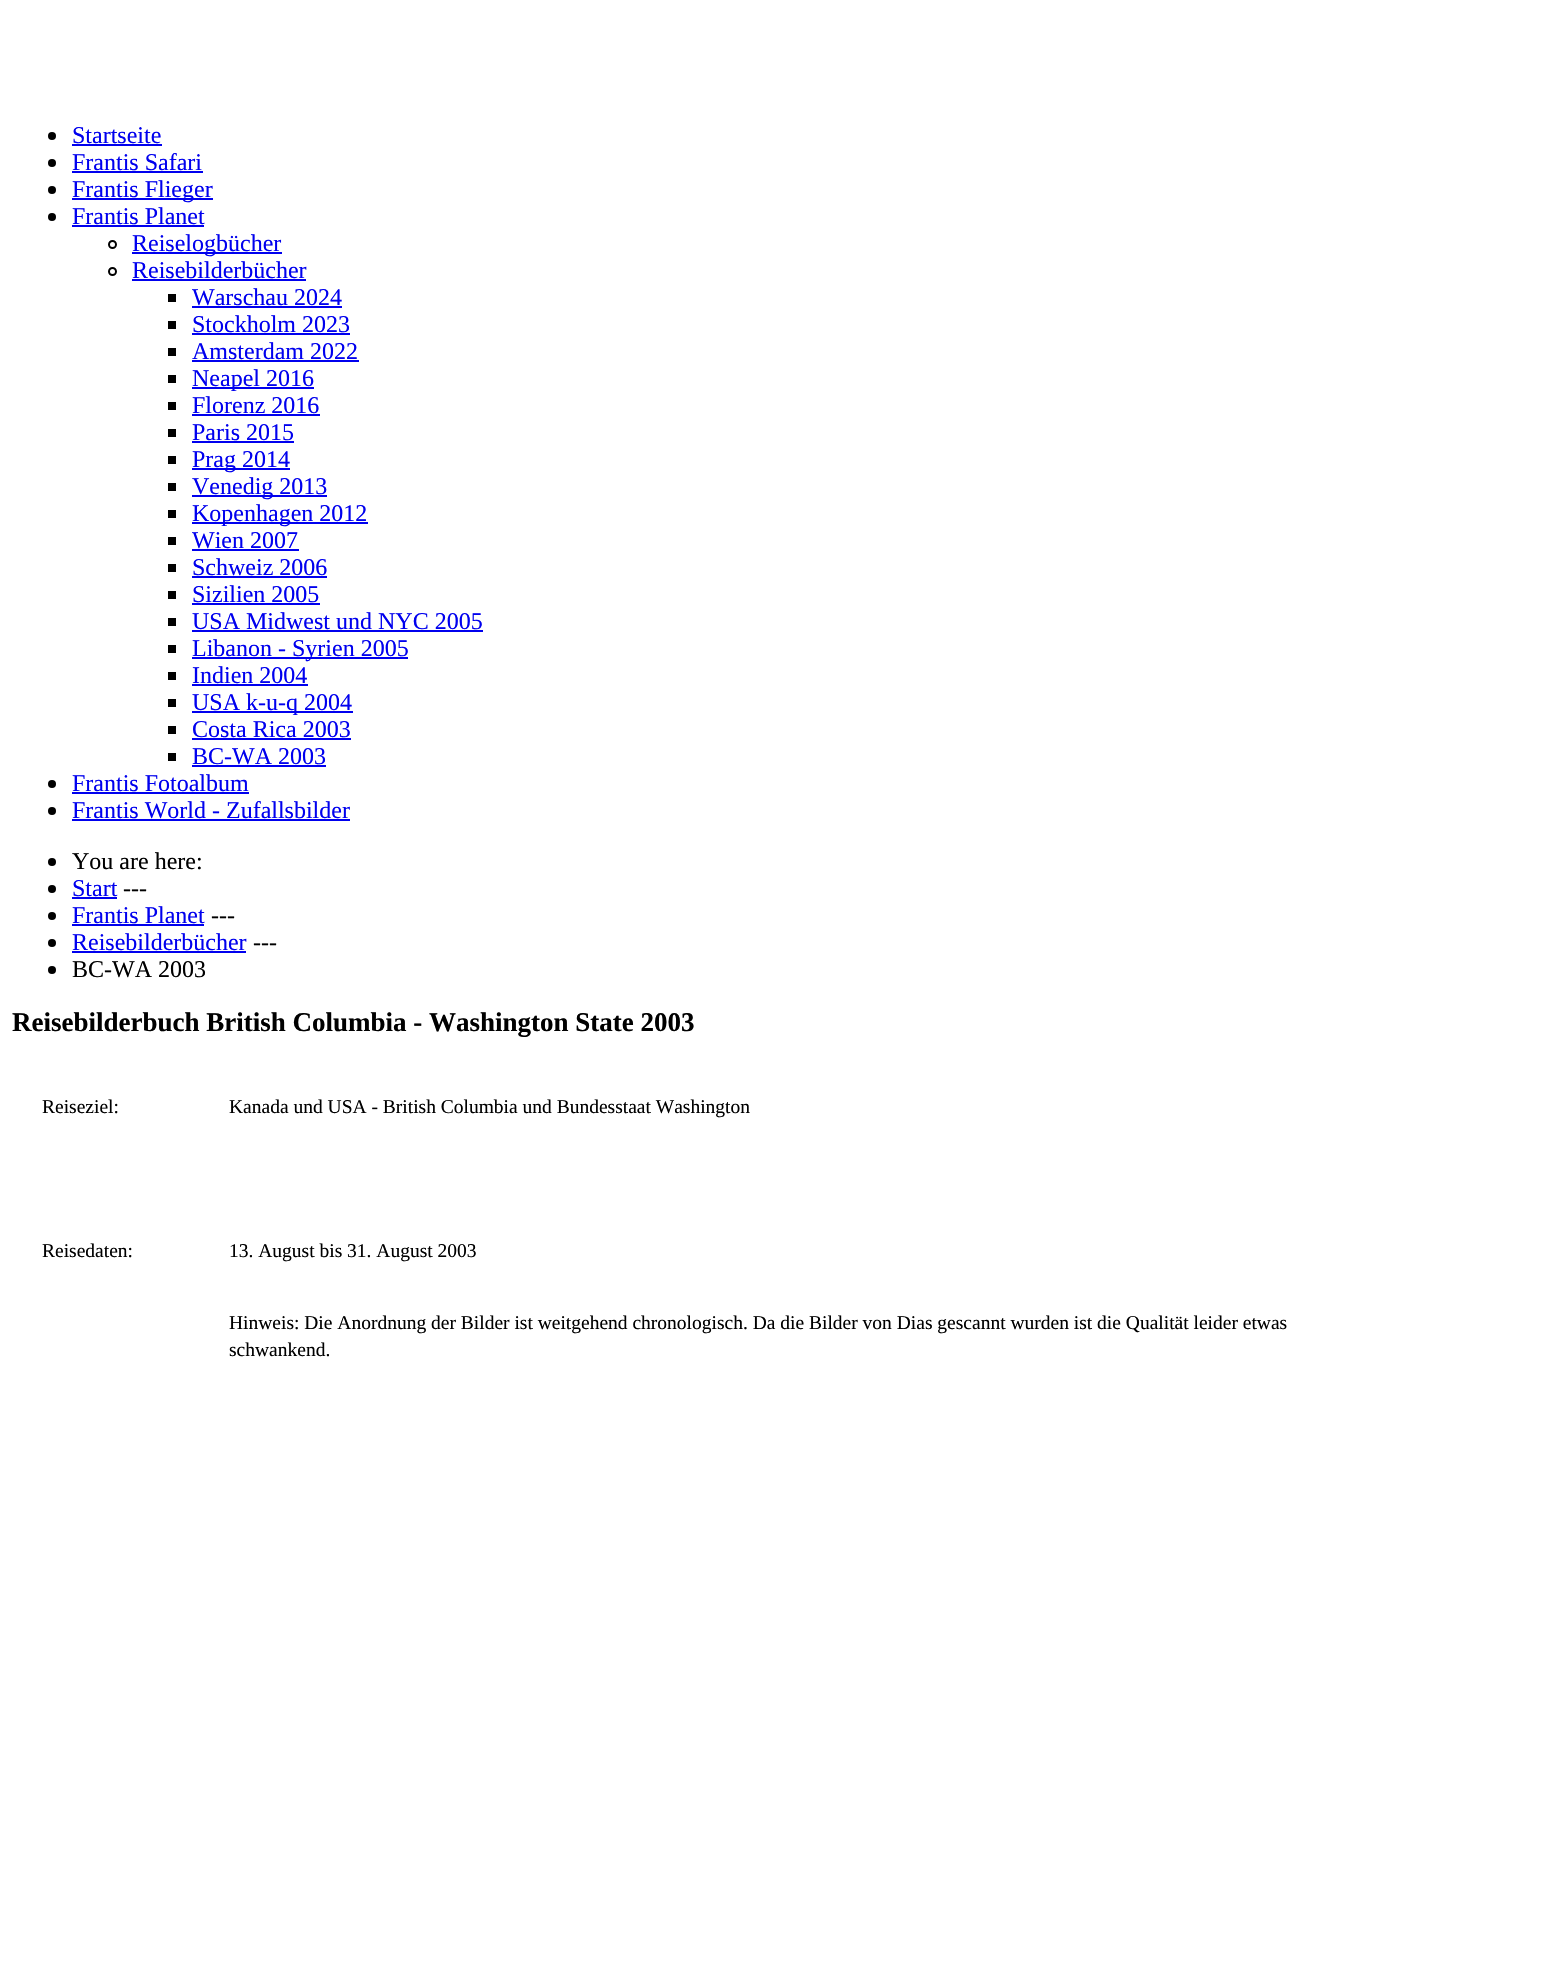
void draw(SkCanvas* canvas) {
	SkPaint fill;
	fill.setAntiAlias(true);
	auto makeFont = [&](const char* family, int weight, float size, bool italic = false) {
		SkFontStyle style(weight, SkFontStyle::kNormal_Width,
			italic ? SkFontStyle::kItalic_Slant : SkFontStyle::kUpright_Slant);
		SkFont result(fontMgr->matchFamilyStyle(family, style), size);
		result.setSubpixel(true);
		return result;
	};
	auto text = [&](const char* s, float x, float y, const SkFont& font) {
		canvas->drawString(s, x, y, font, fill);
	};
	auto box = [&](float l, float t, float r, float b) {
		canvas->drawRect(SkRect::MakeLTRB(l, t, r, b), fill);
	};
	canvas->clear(0xFFFFFFFF);
	fill.setColor(0xFF000000);
	canvas->drawCircle(52, 136, 4, fill);
	fill.setColor(0xFF0000EE);
	box(72, 144, 162, 146);
	fill.setColor(0xFF000000);
	canvas->drawCircle(52, 163, 4, fill);
	fill.setColor(0xFF0000EE);
	box(72, 171, 203, 173);
	fill.setColor(0xFF000000);
	canvas->drawCircle(52, 190, 4, fill);
	fill.setColor(0xFF0000EE);
	box(72, 198, 213, 200);
	fill.setColor(0xFF000000);
	canvas->drawCircle(52, 217, 4, fill);
	fill.setColor(0xFF0000EE);
	box(72, 225, 204, 227);
	fill.setStyle(SkPaint::kStroke_Style);
	fill.setStrokeWidth(2);
	fill.setColor(0xFF000000);
	canvas->drawCircle(112.5f, 244.5f, 3.5f, fill);
	fill.setStyle(SkPaint::kFill_Style);
	fill.setColor(0xFF0000EE);
	box(132, 252, 282, 254);
	fill.setStyle(SkPaint::kStroke_Style);
	fill.setColor(0xFF000000);
	canvas->drawCircle(112.5f, 271.5f, 3.5f, fill);
	fill.setStyle(SkPaint::kFill_Style);
	fill.setColor(0xFF0000EE);
	box(132, 279, 306, 281);
	fill.setColor(0xFF000000);
	box(168, 294, 176, 302);
	fill.setColor(0xFF0000EE);
	box(192, 306, 342, 308);
	fill.setColor(0xFF000000);
	box(168, 321, 176, 329);
	fill.setColor(0xFF0000EE);
	box(192, 333, 350, 335);
	fill.setColor(0xFF000000);
	box(168, 348, 176, 356);
	fill.setColor(0xFF0000EE);
	box(192, 360, 359, 362);
	fill.setColor(0xFF000000);
	box(168, 375, 176, 383);
	fill.setColor(0xFF0000EE);
	box(192, 387, 314, 389);
	fill.setColor(0xFF000000);
	box(168, 402, 176, 410);
	fill.setColor(0xFF0000EE);
	box(192, 414, 320, 416);
	fill.setColor(0xFF000000);
	box(168, 429, 176, 437);
	fill.setColor(0xFF0000EE);
	box(192, 441, 294, 443);
	fill.setColor(0xFF000000);
	box(168, 456, 176, 464);
	fill.setColor(0xFF0000EE);
	box(192, 468, 290, 470);
	fill.setColor(0xFF000000);
	box(168, 483, 176, 491);
	fill.setColor(0xFF0000EE);
	box(192, 495, 327, 497);
	fill.setColor(0xFF000000);
	box(168, 510, 176, 518);
	fill.setColor(0xFF0000EE);
	box(192, 522, 368, 524);
	fill.setColor(0xFF000000);
	box(168, 537, 176, 545);
	fill.setColor(0xFF0000EE);
	box(192, 549, 299, 551);
	fill.setColor(0xFF000000);
	box(168, 564, 176, 572);
	fill.setColor(0xFF0000EE);
	box(192, 576, 327, 578);
	fill.setColor(0xFF000000);
	box(168, 591, 176, 599);
	fill.setColor(0xFF0000EE);
	box(192, 603, 320, 605);
	fill.setColor(0xFF000000);
	box(168, 618, 176, 626);
	fill.setColor(0xFF0000EE);
	box(192, 630, 483, 632);
	fill.setColor(0xFF000000);
	box(168, 645, 176, 653);
	fill.setColor(0xFF0000EE);
	box(192, 657, 408, 659);
	fill.setColor(0xFF000000);
	box(168, 672, 176, 680);
	fill.setColor(0xFF0000EE);
	box(192, 684, 308, 686);
	fill.setColor(0xFF000000);
	box(168, 699, 176, 707);
	fill.setColor(0xFF0000EE);
	box(192, 711, 353, 713);
	fill.setColor(0xFF000000);
	box(168, 726, 176, 734);
	fill.setColor(0xFF0000EE);
	box(192, 738, 351, 740);
	fill.setColor(0xFF000000);
	box(168, 753, 176, 761);
	fill.setColor(0xFF0000EE);
	box(192, 765, 326, 767);
	fill.setColor(0xFF000000);
	canvas->drawCircle(52, 784, 4, fill);
	fill.setColor(0xFF0000EE);
	box(72, 792, 249, 794);
	fill.setColor(0xFF000000);
	canvas->drawCircle(52, 811, 4, fill);
	fill.setColor(0xFF0000EE);
	box(72, 819, 350, 821);
	fill.setColor(0xFF000000);
	canvas->drawCircle(52, 862, 4, fill);
	canvas->drawCircle(52, 889, 4, fill);
	fill.setColor(0xFF0000EE);
	box(72, 897, 117, 899);
	fill.setColor(0xFF000000);
	canvas->drawCircle(52, 916, 4, fill);
	fill.setColor(0xFF0000EE);
	box(72, 924, 204, 926);
	fill.setColor(0xFF000000);
	canvas->drawCircle(52, 943, 4, fill);
	fill.setColor(0xFF0000EE);
	box(72, 951, 246, 953);
	fill.setColor(0xFF000000);
	canvas->drawCircle(52, 970, 4, fill);
	auto font1 = makeFont("Liberation Serif", 400, 24);
	fill.setColor(0xFF0000EE);
	text("Startseite", 72, 143, font1);
	text("Frantis Safari", 72, 170, font1);
	text("Frantis Flieger", 72, 197, font1);
	text("Frantis Planet", 72, 224, font1);
	text("Reiselogbücher", 132, 251, font1);
	text("Reisebilderbücher", 132, 278, font1);
	text("Warschau 2024", 192, 305, font1);
	text("Stockholm 2023", 192, 332, font1);
	text("Amsterdam 2022", 192, 359, font1);
	text("Neapel 2016", 192, 386, font1);
	text("Florenz 2016", 192, 413, font1);
	text("Paris 2015", 192, 440, font1);
	text("Prag 2014", 192, 467, font1);
	text("Venedig 2013", 192, 494, font1);
	text("Kopenhagen 2012", 192, 521, font1);
	text("Wien 2007", 192, 548, font1);
	text("Schweiz 2006", 192, 575, font1);
	text("Sizilien 2005", 192, 602, font1);
	text("USA Midwest und NYC 2005", 192, 629, font1);
	text("Libanon - Syrien 2005", 192, 656, font1);
	text("Indien 2004", 192, 683, font1);
	text("USA k-u-q 2004", 192, 710, font1);
	text("Costa Rica 2003", 192, 737, font1);
	text("BC-WA 2003", 192, 764, font1);
	text("Frantis Fotoalbum", 72, 791, font1);
	text("Frantis World - Zufallsbilder", 72, 818, font1);
	fill.setColor(0xFF000000);
	text("You are here:", 72, 869, font1);
	fill.setColor(0xFF0000EE);
	text("Start", 72, 896, font1);
	fill.setColor(0xFF000000);
	text("---", 123, 896, font1);
	fill.setColor(0xFF0000EE);
	text("Frantis Planet", 72, 923, font1);
	fill.setColor(0xFF000000);
	text("---", 211, 923, font1);
	fill.setColor(0xFF0000EE);
	text("Reisebilderbücher", 72, 950, font1);
	fill.setColor(0xFF000000);
	text("---", 253, 950, font1);
	text("BC-WA 2003", 72, 977, font1);
	auto font2 = makeFont("Liberation Serif", 700, 27);
	text("Reisebilderbuch British Columbia - Washington State 2003", 12, 1031, font2);
	auto font3 = makeFont("Liberation Serif", 400, 19.5f);
	text("Reiseziel:", 42, 1113, font3);
	text("Kanada und USA - British Columbia und Bundesstaat Washington", 229, 1113, font3);
	text("Reisedaten:", 42, 1257, font3);
	text("13. August bis 31. August 2003", 229, 1257, font3);
	text("Hinweis: Die Anordnung der Bilder ist weitgehend chronologisch. Da die Bilder von Dias gescannt wurden ist die Qualität leider etwas", 229, 1329, font3);
	text("schwankend.", 229, 1356, font3);
}
